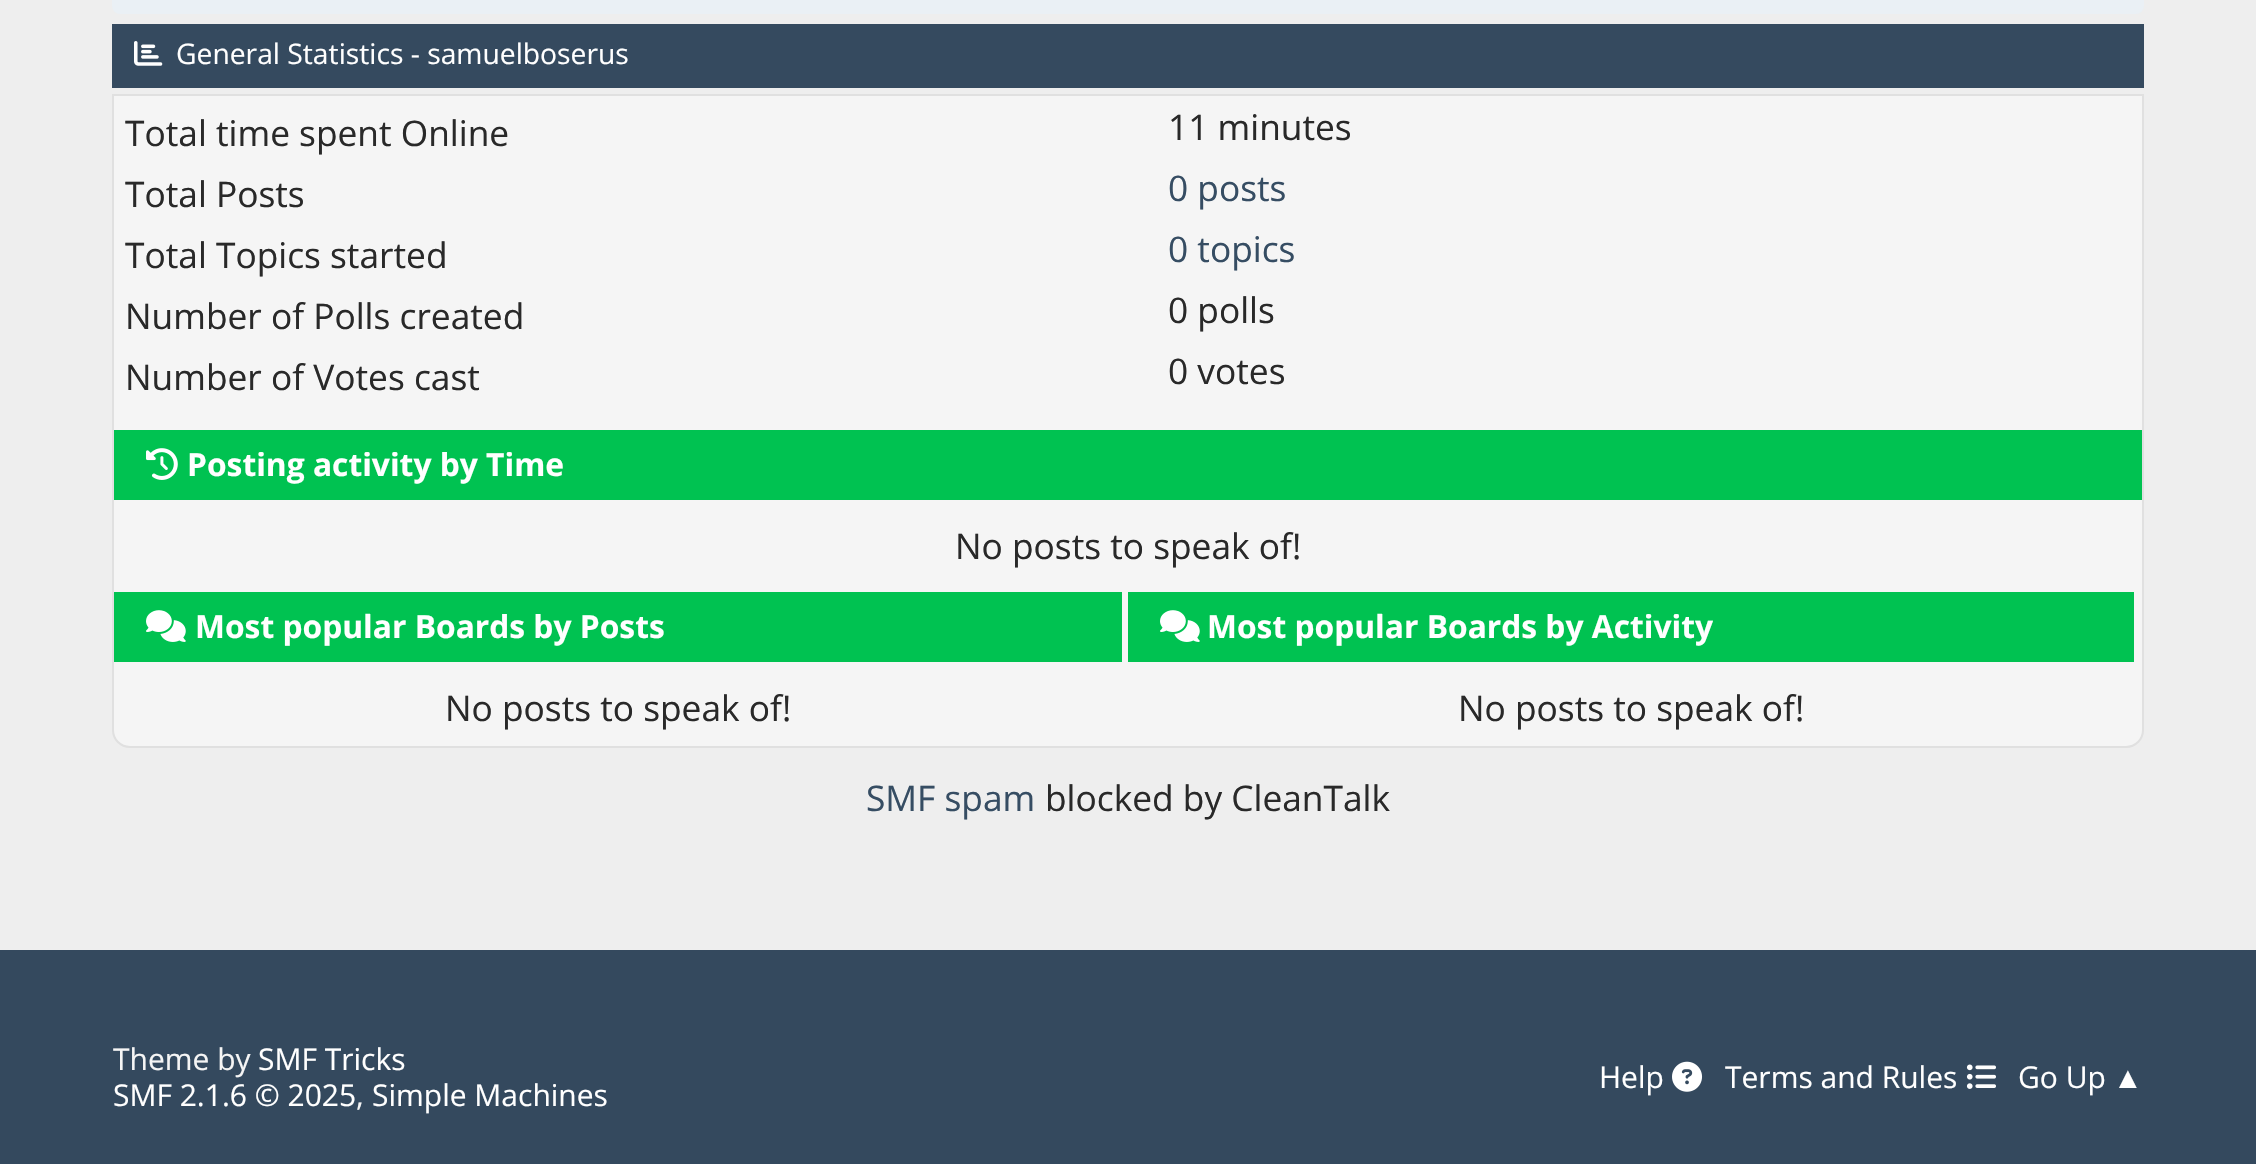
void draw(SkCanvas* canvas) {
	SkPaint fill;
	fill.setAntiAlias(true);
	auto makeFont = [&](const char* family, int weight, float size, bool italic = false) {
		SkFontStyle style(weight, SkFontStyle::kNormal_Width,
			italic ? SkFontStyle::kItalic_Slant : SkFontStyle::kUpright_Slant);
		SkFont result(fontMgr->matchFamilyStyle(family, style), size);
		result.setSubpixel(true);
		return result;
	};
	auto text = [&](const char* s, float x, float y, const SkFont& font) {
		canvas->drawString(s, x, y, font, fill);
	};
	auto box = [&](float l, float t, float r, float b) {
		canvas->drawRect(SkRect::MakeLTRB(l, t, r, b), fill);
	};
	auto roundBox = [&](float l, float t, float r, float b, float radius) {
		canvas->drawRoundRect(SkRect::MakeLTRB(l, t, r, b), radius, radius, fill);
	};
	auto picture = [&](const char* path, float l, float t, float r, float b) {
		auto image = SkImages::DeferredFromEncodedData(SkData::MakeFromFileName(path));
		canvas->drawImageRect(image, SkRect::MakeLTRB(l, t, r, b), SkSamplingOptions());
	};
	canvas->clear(0xFFEEEEEE);
	fill.setColor(0xFFEAF0F5);
	roundBox(112, -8, 2144, 14, 8);
	fill.setColor(0xFF354A5F);
	box(112, 24, 2144, 88);
	picture("image0.png", 134, 41, 163, 66);
	fill.setColor(0xFFF5F5F5);
	canvas->drawPath(SkPathBuilder().moveTo(113, 95).lineTo(2143, 95).lineTo(2143, 730).cubicTo(2143, 739.5f, 2135.5f, 747, 2126, 747).lineTo(130, 747).cubicTo(120.5f, 747, 113, 739.5f, 113, 730).close().detach(), fill);
	fill.setStyle(SkPaint::kStroke_Style);
	fill.setStrokeWidth(2);
	fill.setColor(0xFFE0E0E0);
	canvas->drawPath(SkPathBuilder().moveTo(113, 95).lineTo(2143, 95).lineTo(2143, 730).cubicTo(2143, 739.5f, 2135.5f, 747, 2126, 747).lineTo(130, 747).cubicTo(120.5f, 747, 113, 739.5f, 113, 730).close().detach(), fill);
	fill.setStyle(SkPaint::kFill_Style);
	fill.setColor(0xFF00C251);
	box(114, 430, 2142, 500);
	picture("image1.png", 146, 448, 178, 480);
	box(114, 592, 1122, 662);
	picture("image2.png", 146, 610, 186, 642);
	box(1128, 592, 2134, 662);
	picture("image2.png", 1160, 610, 1200, 642);
	fill.setColor(0xFF34495E);
	box(0, 950, 2256, 1164);
	picture("image3.png", 1672, 1061, 1703, 1092);
	picture("image4.png", 1966, 1064, 1996, 1089);
	auto font1 = makeFont("Open Sans", 400, 28.25f);
	fill.setColor(0xFFFFFFFF);
	text("General Statistics - samuelboserus", 176, 64, font1);
	auto font2 = makeFont("Open Sans", 400, 35.3f);
	fill.setColor(0xFF292929);
	text("Total time spent Online", 125, 146, font2);
	text("11 minutes", 1168, 140, font2);
	text("Total Posts", 125, 207, font2);
	fill.setColor(0xFF364D63);
	text("0 posts", 1168, 201, font2);
	fill.setColor(0xFF292929);
	text("Total Topics started", 125, 268, font2);
	fill.setColor(0xFF364D63);
	text("0 topics", 1168, 262, font2);
	fill.setColor(0xFF292929);
	text("Number of Polls created", 125, 329, font2);
	text("0 polls", 1168, 323, font2);
	text("Number of Votes cast", 125, 390, font2);
	text("0 votes", 1168, 384, font2);
	auto font3 = makeFont("Open Sans", 700, 31.75f);
	fill.setColor(0xFFFFFFFF);
	text("Posting activity by Time", 187, 476, font3);
	fill.setColor(0xFF292929);
	text("No posts to speak of!", 955, 559, font2);
	fill.setColor(0xFFFFFFFF);
	text("Most popular Boards by Posts", 195, 638, font3);
	fill.setColor(0xFF292929);
	text("No posts to speak of!", 445, 721, font2);
	fill.setColor(0xFFFFFFFF);
	text("Most popular Boards by Activity", 1207, 638, font3);
	fill.setColor(0xFF292929);
	text("No posts to speak of!", 1458, 721, font2);
	fill.setColor(0xFF364D63);
	text("SMF spam", 866, 811, font2);
	fill.setColor(0xFF292929);
	text("blocked by CleanTalk", 1045, 811, font2);
	auto font4 = makeFont("Open Sans", 400, 30);
	fill.setColor(0xFFF5F5F5);
	text("Theme by", 113, 1070, font4);
	fill.setColor(0xFFFFFFFF);
	text("SMF Tricks", 258, 1070, font4);
	text("SMF 2.1.6 © 2025", 113, 1106, font4);
	fill.setColor(0xFFF5F5F5);
	text(",", 356, 1106, font4);
	fill.setColor(0xFFFFFFFF);
	text("Simple Machines", 372, 1106, font4);
	text("Help", 1599, 1088, font4);
	text("Terms and Rules", 1725, 1088, font4);
	text("Go Up", 2018, 1088, font4);
	auto font5 = makeFont("Liberation Sans", 400, 30);
	text("▲", 2113, 1088, font5);
}
